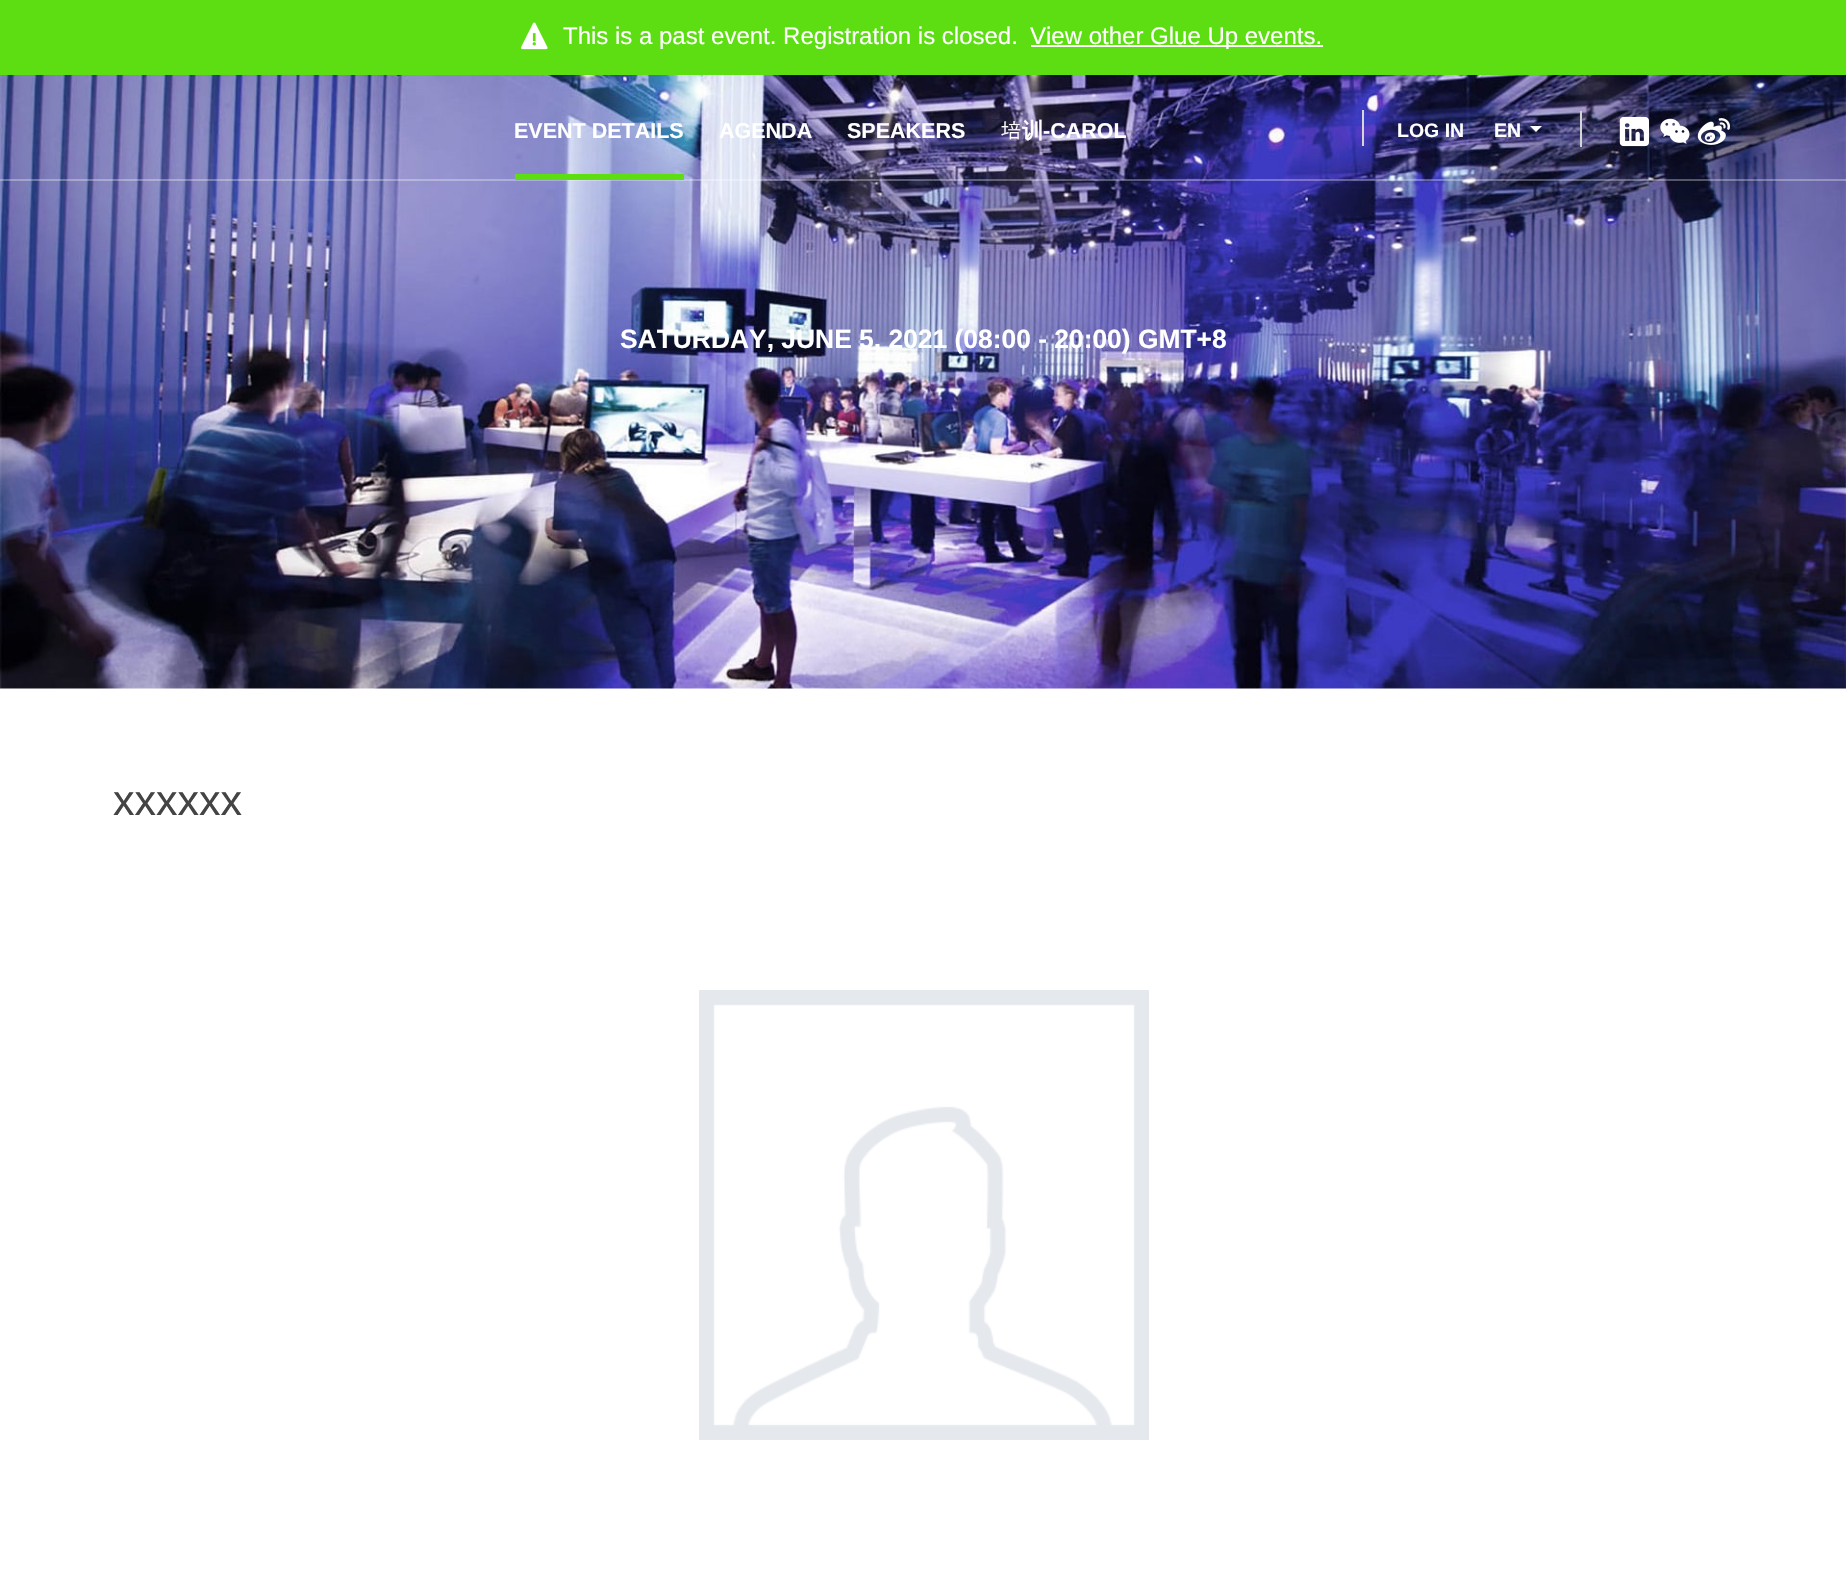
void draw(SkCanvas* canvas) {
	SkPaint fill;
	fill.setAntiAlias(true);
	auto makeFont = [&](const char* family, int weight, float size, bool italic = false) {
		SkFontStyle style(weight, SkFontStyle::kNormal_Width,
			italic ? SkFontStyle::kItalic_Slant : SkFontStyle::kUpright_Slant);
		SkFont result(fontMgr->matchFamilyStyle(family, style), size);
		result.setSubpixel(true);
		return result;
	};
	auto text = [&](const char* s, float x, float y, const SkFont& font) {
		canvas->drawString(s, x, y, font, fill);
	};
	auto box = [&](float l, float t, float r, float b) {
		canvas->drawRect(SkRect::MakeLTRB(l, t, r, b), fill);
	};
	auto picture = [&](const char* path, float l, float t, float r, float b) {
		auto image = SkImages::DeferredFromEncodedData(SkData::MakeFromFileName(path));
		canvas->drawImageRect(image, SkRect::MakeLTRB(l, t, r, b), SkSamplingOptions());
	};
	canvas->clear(0xFFFFFFFF);
	fill.setColor(0xFF5DDE12);
	box(0, 0, 1846, 75);
	picture("image0.png", 521, 22, 548, 50);
	fill.setColor(0xFFFFFFFF);
	box(1031, 45, 1323, 47);
	picture("image4.png", 0, 75, 1846, 689);
	fill.setColor(0x4DFFFFFF);
	box(0, 179, 1846, 181);
	fill.setColor(0xFF5DDE12);
	box(515, 174, 684, 180);
	fill.setColor(0xFFD5D5D5);
	box(1362, 110, 1364, 146);
	fill.setColor(0xFFFFFFFF);
	canvas->drawPath(SkPathBuilder().moveTo(1530, 126).lineTo(1542, 126).lineTo(1536, 132).close().detach(), fill);
	fill.setColor(0xFFD5D5D5);
	box(1580, 111, 1582, 147);
	picture("image1.png", 1619, 116, 1649, 147);
	picture("image2.png", 1660, 118, 1690, 144);
	picture("image3.png", 1697, 118, 1730, 145);
	picture("image5.png", 699, 990, 1149, 1440);
	auto font1 = makeFont("Liberation Sans", 400, 24);
	fill.setColor(0xFFFFFFFF);
	text("This is a past event. Registration is closed.", 563, 44, font1);
	text("View other Glue Up events.", 1030, 44, font1);
	auto font2 = makeFont("Liberation Sans", 700, 21.5f);
	text("EVENT DETAILS", 514, 138, font2);
	text("AGENDA", 719, 138, font2);
	text("SPEAKERS", 847, 138, font2);
	auto font3 = makeFont("Dotum", 400, 21.5f);
	text("培", 1000, 138, font3);
	auto font4 = makeFont("WenQuanYi Zen Hei", 700, 21.5f);
	text("训", 1022, 138, font4);
	text("-CAROL", 1043, 138, font2);
	auto font5 = makeFont("Liberation Sans", 700, 19.5f);
	text("LOG IN", 1397, 137, font5);
	text("EN", 1494, 137, font5);
	auto font6 = makeFont("Liberation Sans", 700, 26.4f);
	text("SATURDAY, JUNE 5, 2021 (08:00 - 20:00) GMT+8", 620, 348, font6);
	auto font7 = makeFont("Liberation Sans", 400, 43);
	fill.setColor(0xFF444444);
	text("xxxxxx", 113, 815, font7);
}
